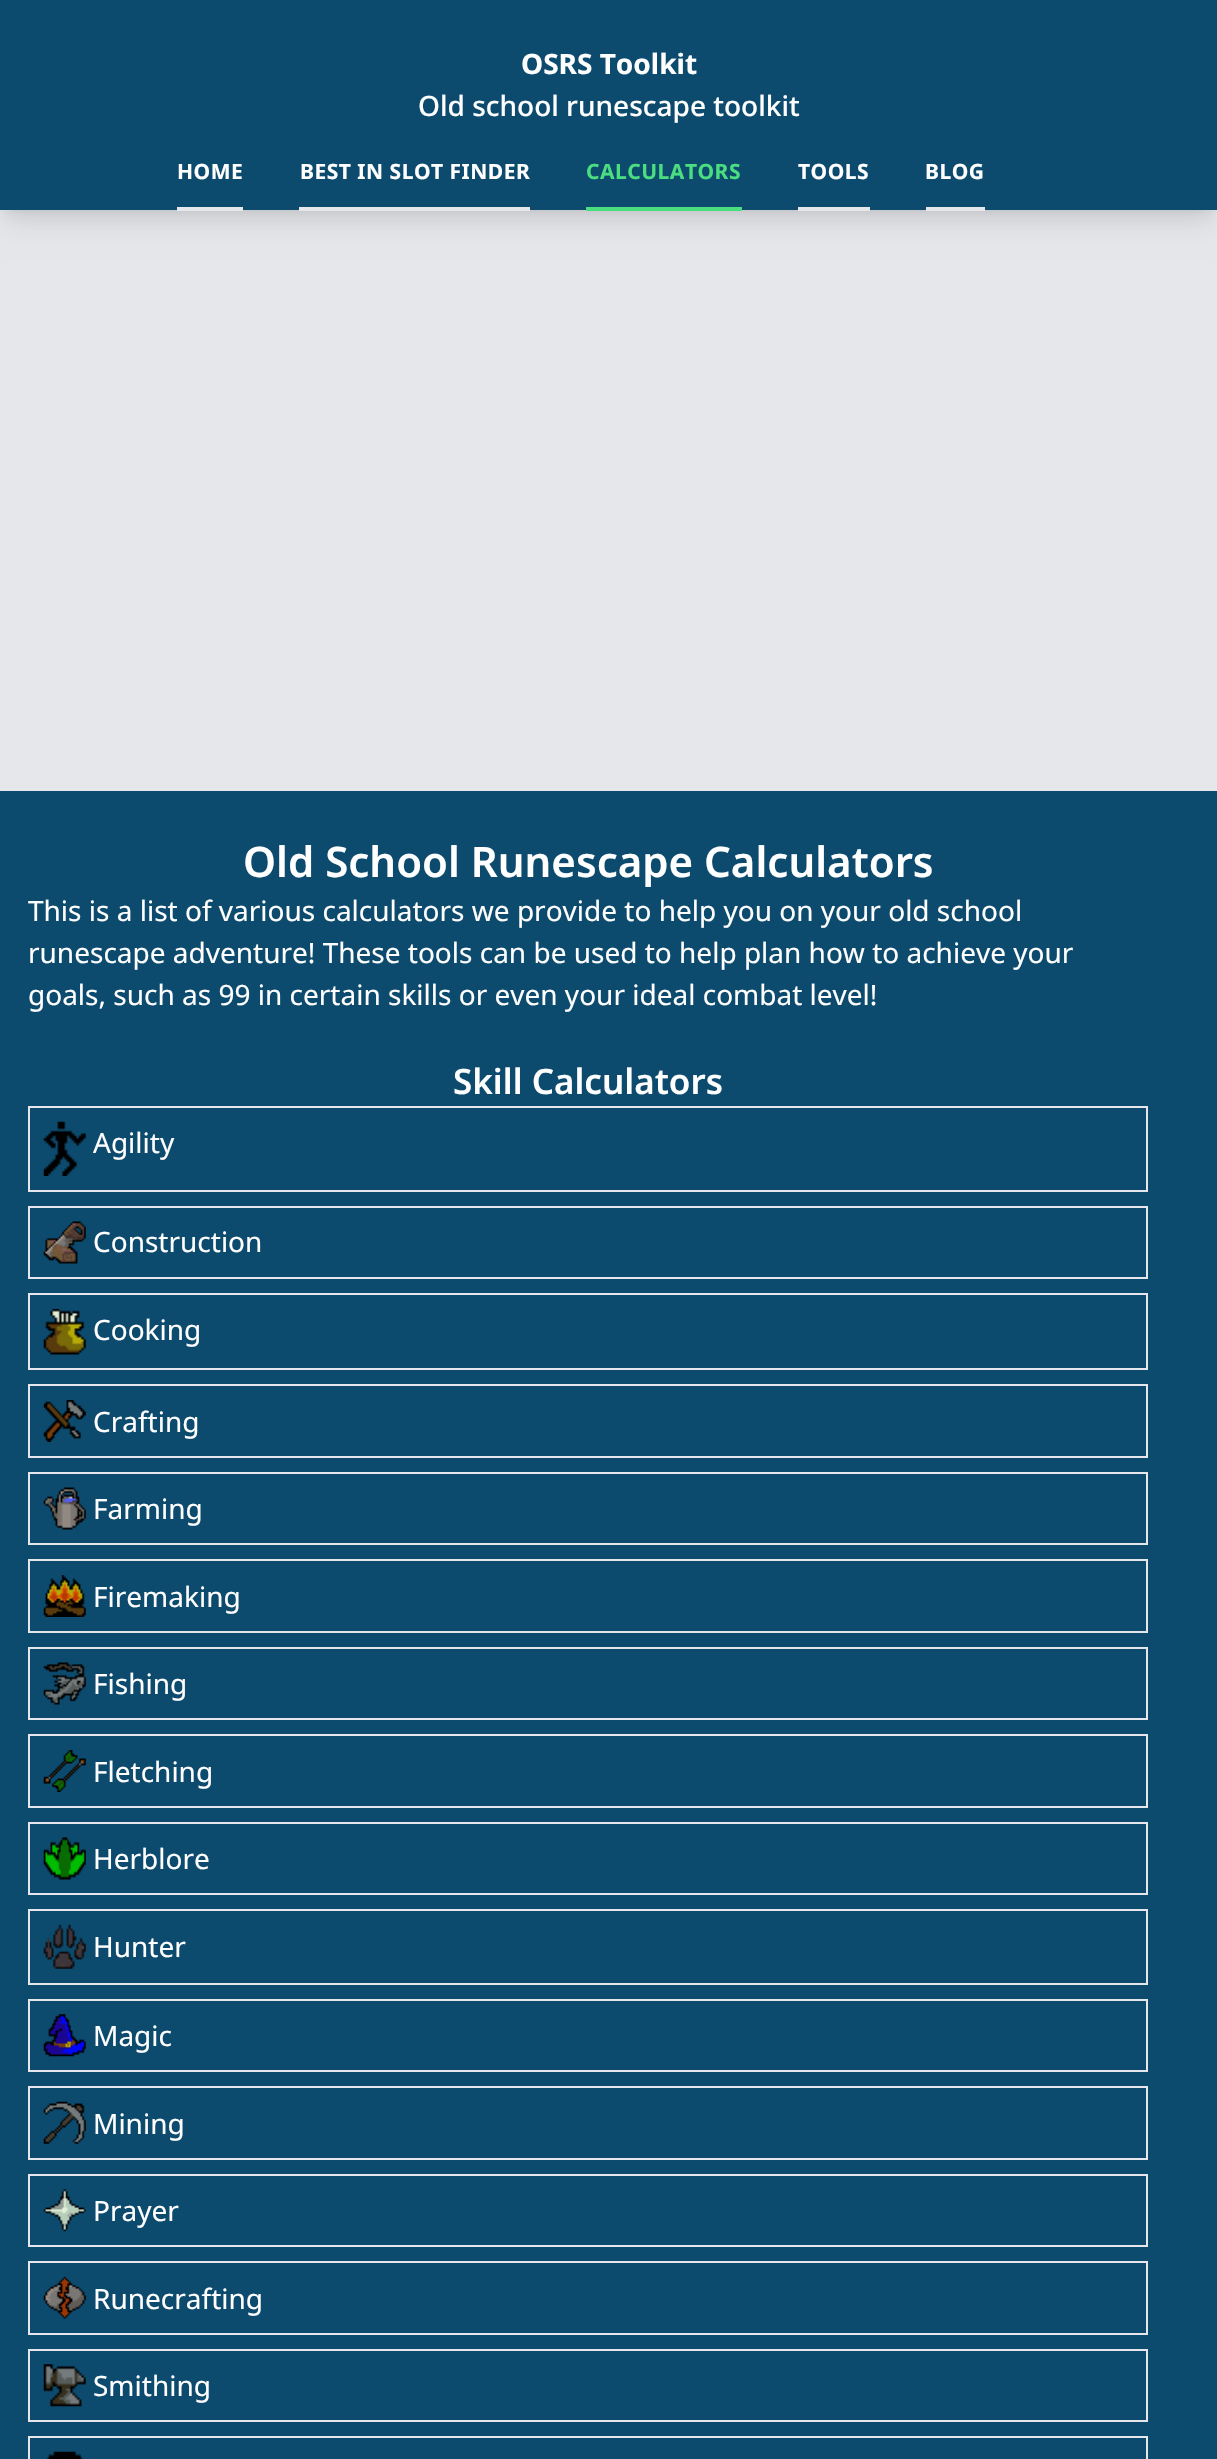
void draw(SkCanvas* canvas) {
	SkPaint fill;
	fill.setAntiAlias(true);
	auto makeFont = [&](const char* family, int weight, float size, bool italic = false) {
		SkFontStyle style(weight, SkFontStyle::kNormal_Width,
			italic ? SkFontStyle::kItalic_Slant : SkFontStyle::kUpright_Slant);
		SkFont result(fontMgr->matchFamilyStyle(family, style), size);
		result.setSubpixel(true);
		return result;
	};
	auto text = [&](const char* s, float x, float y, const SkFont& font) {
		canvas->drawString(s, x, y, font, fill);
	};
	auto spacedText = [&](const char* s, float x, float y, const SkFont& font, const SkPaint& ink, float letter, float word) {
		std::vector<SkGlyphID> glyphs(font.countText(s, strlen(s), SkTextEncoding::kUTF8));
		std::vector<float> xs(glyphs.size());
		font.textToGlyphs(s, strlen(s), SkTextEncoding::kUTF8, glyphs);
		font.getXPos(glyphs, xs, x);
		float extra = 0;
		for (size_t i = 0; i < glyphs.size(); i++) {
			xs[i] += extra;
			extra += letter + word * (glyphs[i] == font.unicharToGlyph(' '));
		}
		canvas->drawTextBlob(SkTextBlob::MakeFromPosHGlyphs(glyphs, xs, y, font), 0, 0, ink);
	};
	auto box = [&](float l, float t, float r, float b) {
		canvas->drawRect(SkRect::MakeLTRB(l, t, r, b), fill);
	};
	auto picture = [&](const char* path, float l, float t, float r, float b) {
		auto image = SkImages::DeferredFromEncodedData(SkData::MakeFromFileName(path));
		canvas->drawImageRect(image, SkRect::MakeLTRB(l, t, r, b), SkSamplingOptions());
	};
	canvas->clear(0xFFE5E7EB);
	fill.setColor(0x1A000000);
	fill.setMaskFilter(SkMaskFilter::MakeBlur(kNormal_SkBlurStyle, 5));
	canvas->drawRect(SkRect::MakeLTRB(7, 14, 1211, 210), fill);
	fill.setMaskFilter(nullptr);
	fill.setMaskFilter(SkMaskFilter::MakeBlur(kNormal_SkBlurStyle, 13));
	canvas->drawRect(SkRect::MakeLTRB(5, 23, 1213, 222), fill);
	fill.setMaskFilter(nullptr);
	fill.setColor(0xFF0C4A6E);
	box(0, 0, 1217, 210);
	fill.setColor(0xFFE5E7EB);
	box(177, 207, 243, 211);
	box(299, 207, 530, 211);
	fill.setColor(0xFF4ADE80);
	box(586, 207, 742, 211);
	fill.setColor(0xFFE5E7EB);
	box(798, 207, 870, 211);
	box(926, 207, 985, 211);
	fill.setColor(0xFF0C4A6E);
	box(0, 791, 1217, 2459);
	fill.setStyle(SkPaint::kStroke_Style);
	fill.setStrokeWidth(2);
	fill.setColor(0xFFE5E7EB);
	canvas->drawRect(SkRect::MakeLTRB(29, 1107, 1147, 1191), fill);
	picture("image0.png", 43, 1121, 86, 1176);
	canvas->drawRect(SkRect::MakeLTRB(29, 1207, 1147, 1278), fill);
	picture("image1.png", 43, 1221, 86, 1264);
	canvas->drawRect(SkRect::MakeLTRB(29, 1294, 1147, 1369), fill);
	picture("image2.png", 43, 1309, 86, 1355);
	canvas->drawRect(SkRect::MakeLTRB(29, 1385, 1147, 1457), fill);
	picture("image3.png", 43, 1400, 86, 1442);
	canvas->drawRect(SkRect::MakeLTRB(29, 1473, 1147, 1544), fill);
	picture("image4.png", 43, 1487, 86, 1530);
	canvas->drawRect(SkRect::MakeLTRB(29, 1560, 1147, 1632), fill);
	picture("image5.png", 43, 1575, 86, 1617);
	canvas->drawRect(SkRect::MakeLTRB(29, 1648, 1147, 1719), fill);
	picture("image6.png", 43, 1662, 86, 1705);
	canvas->drawRect(SkRect::MakeLTRB(29, 1735, 1147, 1807), fill);
	picture("image7.png", 43, 1750, 86, 1792);
	canvas->drawRect(SkRect::MakeLTRB(29, 1823, 1147, 1894), fill);
	picture("image8.png", 43, 1837, 86, 1880);
	canvas->drawRect(SkRect::MakeLTRB(29, 1910, 1147, 1984), fill);
	picture("image9.png", 43, 1925, 86, 1969);
	canvas->drawRect(SkRect::MakeLTRB(29, 2000, 1147, 2071), fill);
	picture("image10.png", 43, 2014, 86, 2057);
	canvas->drawRect(SkRect::MakeLTRB(29, 2087, 1147, 2159), fill);
	picture("image11.png", 43, 2101, 86, 2144);
	canvas->drawRect(SkRect::MakeLTRB(29, 2175, 1147, 2246), fill);
	picture("image12.png", 43, 2189, 86, 2232);
	canvas->drawRect(SkRect::MakeLTRB(29, 2262, 1147, 2334), fill);
	picture("image13.png", 43, 2276, 86, 2319);
	canvas->drawRect(SkRect::MakeLTRB(29, 2350, 1147, 2421), fill);
	picture("image14.png", 43, 2364, 86, 2407);
	canvas->drawRect(SkRect::MakeLTRB(29, 2437, 1147, 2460), fill);
	picture("image15.png", 46, 2451, 83, 2459);
	auto font1 = makeFont("Noto Sans", 700, 28);
	fill.setStyle(SkPaint::kFill_Style);
	fill.setColor(0xFFFFFFFF);
	text("OSRS Toolkit", 521, 74, font1);
	auto font2 = makeFont("Noto Sans", 500, 28);
	text("Old school runescape toolkit", 418, 116, font2);
	auto font3 = makeFont("Noto Sans", 700, 21);
	spacedText("HOME", 177, 179, font3, fill, 0.5f, 0);
	spacedText("BEST IN SLOT FINDER", 300, 179, font3, fill, 0.5f, 0);
	fill.setColor(0xFF4ADE80);
	spacedText("CALCULATORS", 586, 179, font3, fill, 0.5f, 0);
	fill.setColor(0xFFFFFFFF);
	spacedText("TOOLS", 798, 179, font3, fill, 0.5f, 0);
	spacedText("BLOG", 925, 179, font3, fill, 0.5f, 0);
	auto font4 = makeFont("Noto Sans", 600, 42);
	text("Old School Runescape Calculators", 243, 877, font4);
	auto font5 = makeFont("Noto Sans", 400, 28);
	text("This is a list of various calculators we provide to help you on your old school", 28, 921, font5);
	text("runescape adventure! These tools can be used to help plan how to achieve your", 28, 963, font5);
	text("goals, such as 99 in certain skills or even your ideal combat level!", 28, 1005, font5);
	auto font6 = makeFont("Noto Sans", 600, 35);
	text("Skill Calculators", 453, 1094, font6);
	text("Agility", 93, 1153, font5);
	text("Construction", 93, 1252, font5);
	text("Cooking", 93, 1340, font5);
	text("Crafting", 93, 1432, font5);
	text("Farming", 93, 1519, font5);
	text("Firemaking", 93, 1607, font5);
	text("Fishing", 93, 1694, font5);
	text("Fletching", 93, 1782, font5);
	text("Herblore", 93, 1869, font5);
	text("Hunter", 93, 1957, font5);
	text("Magic", 93, 2046, font5);
	text("Mining", 93, 2134, font5);
	text("Prayer", 93, 2221, font5);
	text("Runecrafting", 93, 2309, font5);
	text("Smithing", 93, 2396, font5);
}
